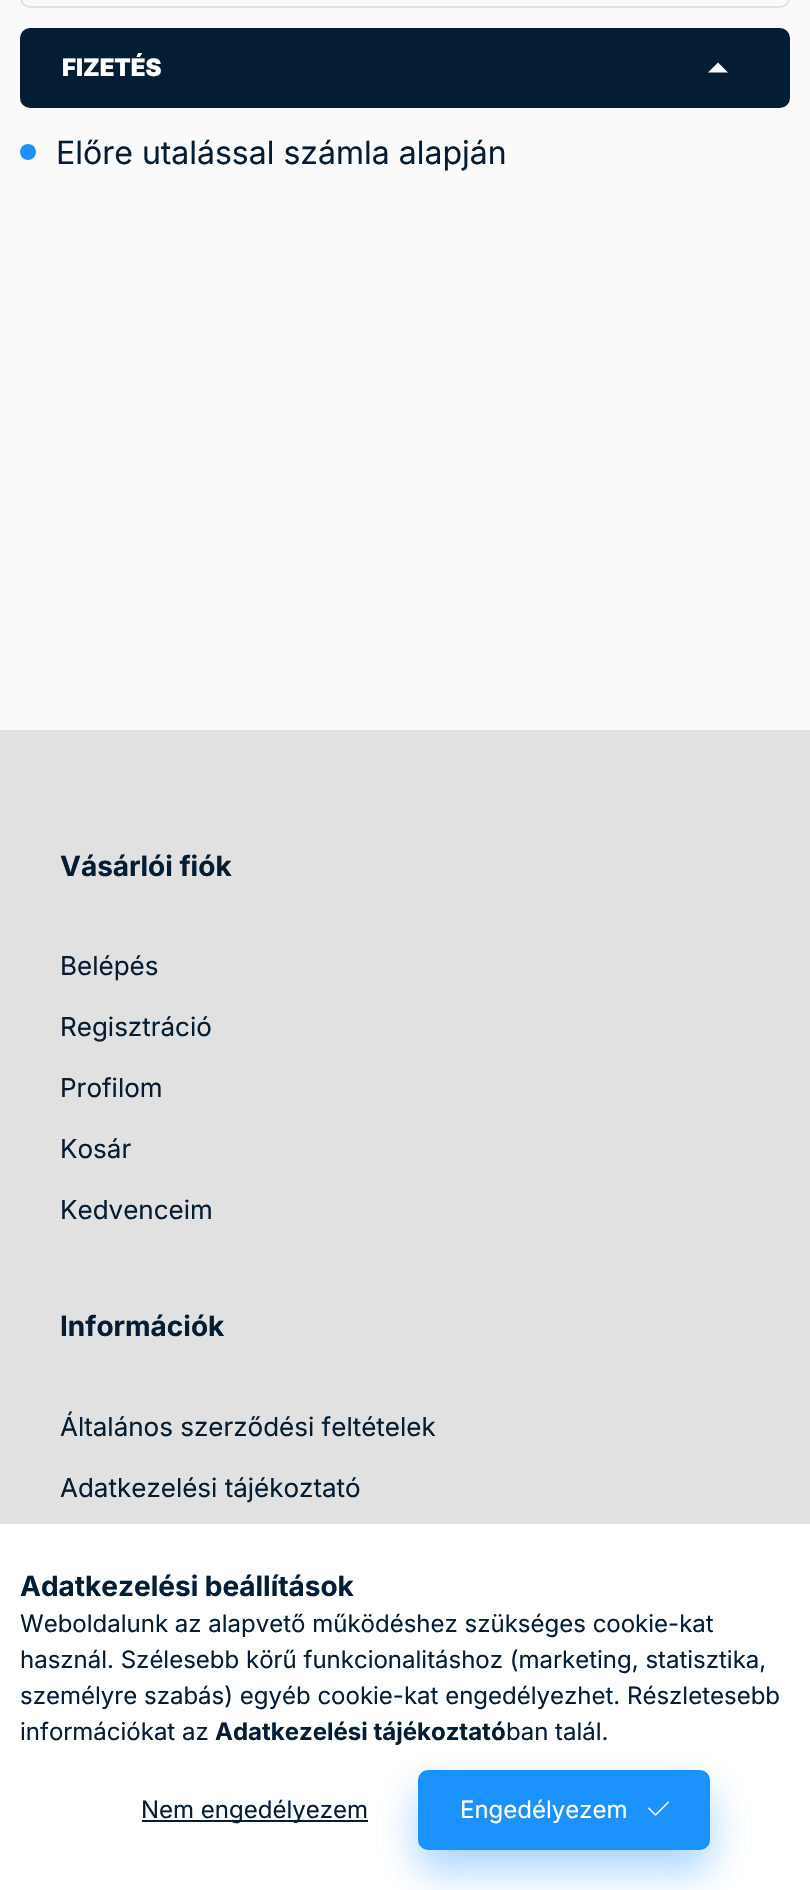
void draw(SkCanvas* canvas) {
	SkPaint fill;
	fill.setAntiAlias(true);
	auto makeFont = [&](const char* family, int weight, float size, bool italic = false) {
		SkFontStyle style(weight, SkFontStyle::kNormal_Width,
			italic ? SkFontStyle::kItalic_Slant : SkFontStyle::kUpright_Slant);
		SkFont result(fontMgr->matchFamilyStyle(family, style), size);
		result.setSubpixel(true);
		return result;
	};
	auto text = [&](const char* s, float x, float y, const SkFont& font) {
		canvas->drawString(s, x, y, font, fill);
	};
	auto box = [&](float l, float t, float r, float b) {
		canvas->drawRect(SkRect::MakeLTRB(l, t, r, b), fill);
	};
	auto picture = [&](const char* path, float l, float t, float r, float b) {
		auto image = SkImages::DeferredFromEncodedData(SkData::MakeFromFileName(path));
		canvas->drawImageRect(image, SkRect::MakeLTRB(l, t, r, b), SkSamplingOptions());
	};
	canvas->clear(0xFFFAFAFA);
	fill.setStyle(SkPaint::kStroke_Style);
	fill.setStrokeWidth(2);
	fill.setColor(0xFFE1E1E1);
	canvas->drawRoundRect(SkRect::MakeLTRB(21, -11, 789, 7), 9, 9, fill);
	fill.setStyle(SkPaint::kFill_Style);
	fill.setColor(0xFF051D33);
	canvas->drawRoundRect(SkRect::MakeLTRB(21, 29, 789, 107), 9, 9, fill);
	fill.setStyle(SkPaint::kStroke_Style);
	canvas->drawRoundRect(SkRect::MakeLTRB(21, 29, 789, 107), 9, 9, fill);
	fill.setStyle(SkPaint::kFill_Style);
	fill.setColor(0xFFFFFFFF);
	canvas->drawPath(SkPathBuilder().moveTo(708, 72.5f).lineTo(728, 72.5f).lineTo(718, 62.5f).close().detach(), fill);
	fill.setColor(0xFF1B92FF);
	canvas->drawCircle(28, 152, 8, fill);
	fill.setColor(0xFFE1E1E1);
	box(0, 730, 810, 1524);
	fill.setColor(0xFFFFFFFF);
	box(0, 1524, 810, 1890);
	fill.setColor(0xFF051D33);
	box(142, 1820, 368, 1822);
	fill.setColor(0x661B92FF);
	fill.setMaskFilter(SkMaskFilter::MakeBlur(kNormal_SkBlurStyle, 20));
	canvas->drawRoundRect(SkRect::MakeLTRB(418, 1790, 710, 1870), 10, 10, fill);
	fill.setMaskFilter(nullptr);
	fill.setColor(0xFF1B92FF);
	canvas->drawRoundRect(SkRect::MakeLTRB(419, 1771, 709, 1849), 9, 9, fill);
	fill.setStyle(SkPaint::kStroke_Style);
	canvas->drawRoundRect(SkRect::MakeLTRB(419, 1771, 709, 1849), 9, 9, fill);
	picture("image0.png", 648, 1801, 669, 1816);
	auto font1 = makeFont("Inter", 900, 24);
	fill.setStyle(SkPaint::kFill_Style);
	fill.setColor(0xFFFFFFFF);
	text("FIZETÉS", 62, 76, font1);
	auto font2 = makeFont("Inter", 400, 32);
	fill.setColor(0xFF051D33);
	text("Előre utalással számla alapján", 56, 164, font2);
	auto font3 = makeFont("Inter", 700, 28);
	text("Vásárlói fiók", 60, 876, font3);
	auto font4 = makeFont("Inter", 400, 26);
	text("Belépés", 60, 975, font4);
	text("Regisztráció", 60, 1036, font4);
	text("Profilom", 60, 1097, font4);
	text("Kosár", 60, 1158, font4);
	text("Kedvenceim", 60, 1219, font4);
	text("Információk", 60, 1336, font3);
	text("Általános szerződési feltételek", 60, 1436, font4);
	text("Adatkezelési tájékoztató", 60, 1497, font4);
	text("Adatkezelési beállítások", 20, 1596, font3);
	auto font5 = makeFont("Inter", 400, 24);
	text("Weboldalunk az alapvető működéshez szükséges cookie-kat", 20, 1632, font5);
	text("használ. Szélesebb körű funkcionalitáshoz (marketing, statisztika,", 20, 1668, font5);
	text("személyre szabás) egyéb cookie-kat engedélyezhet. Részletesebb", 20, 1704, font5);
	text("információkat az", 20, 1740, font5);
	auto font6 = makeFont("Inter", 700, 24);
	text("Adatkezelési tájékoztató", 215, 1740, font6);
	text("ban talál.", 506, 1740, font5);
	text("Nem engedélyezem", 141, 1818, font5);
	fill.setColor(0xFFFFFFFF);
	text("Engedélyezem", 460, 1818, font5);
}
